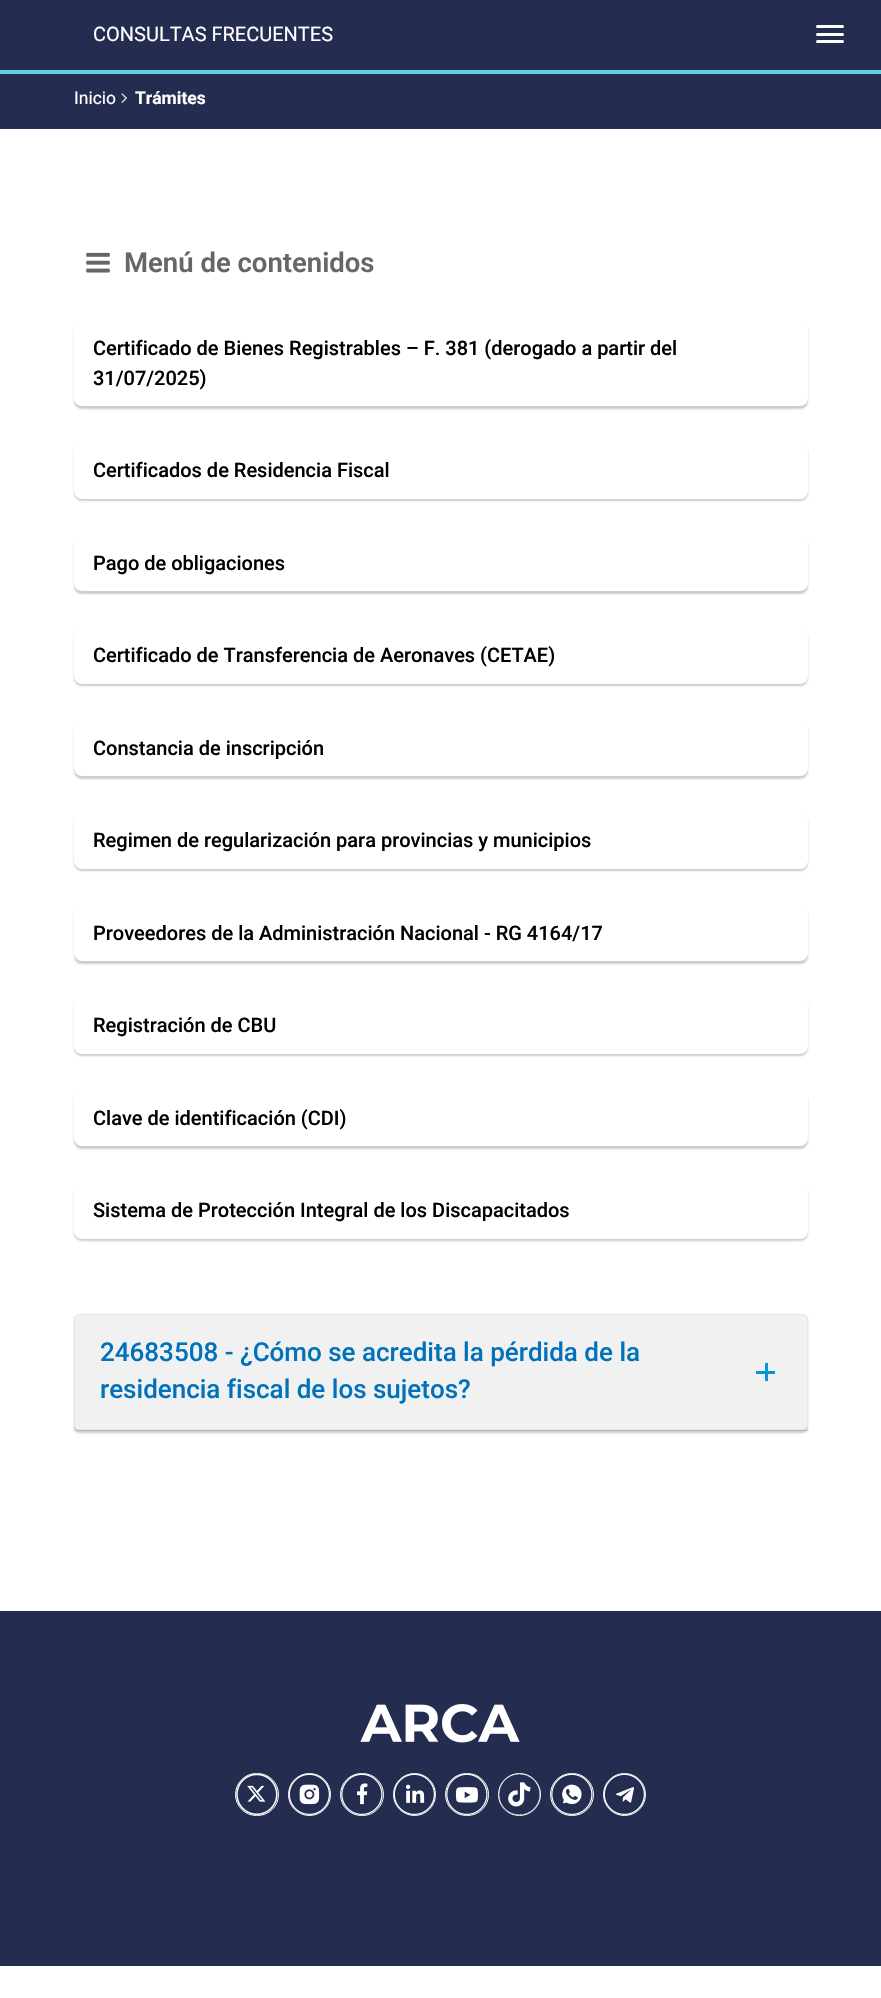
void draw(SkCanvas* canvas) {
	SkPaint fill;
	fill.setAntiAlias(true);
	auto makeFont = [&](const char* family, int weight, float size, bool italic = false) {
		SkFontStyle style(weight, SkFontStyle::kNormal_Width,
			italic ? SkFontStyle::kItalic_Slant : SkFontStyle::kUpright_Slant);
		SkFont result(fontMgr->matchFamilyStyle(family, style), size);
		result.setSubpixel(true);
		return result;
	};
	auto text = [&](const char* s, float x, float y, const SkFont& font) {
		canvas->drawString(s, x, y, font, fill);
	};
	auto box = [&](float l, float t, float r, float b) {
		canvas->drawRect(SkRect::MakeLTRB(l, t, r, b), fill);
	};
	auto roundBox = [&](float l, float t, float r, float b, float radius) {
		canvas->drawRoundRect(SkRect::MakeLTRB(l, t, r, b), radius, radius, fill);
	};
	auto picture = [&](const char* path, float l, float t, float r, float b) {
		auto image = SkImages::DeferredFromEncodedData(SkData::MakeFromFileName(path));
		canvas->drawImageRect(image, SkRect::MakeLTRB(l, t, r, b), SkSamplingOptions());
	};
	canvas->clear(0xFFFFFFFF);
	fill.setColor(0xFF242C4F);
	box(0, 0, 881, 70);
	fill.setColor(0xFFFFFFFF);
	roundBox(816, 25, 844, 28, 1.5f);
	roundBox(816, 33, 844, 36, 1.5f);
	roundBox(816, 40, 844, 43, 1.5f);
	fill.setColor(0xFF242C4F);
	box(0, 74, 881, 129);
	fill.setColor(0xFF63CFE3);
	box(0, 70, 881, 74);
	picture("image0.png", 121, 93, 127, 103);
	picture("image1.png", 86, 252, 110, 273);
	fill.setColor(0x33000000);
	fill.setMaskFilter(SkMaskFilter::MakeBlur(kNormal_SkBlurStyle, 1));
	canvas->drawRoundRect(SkRect::MakeLTRB(74, 324, 808, 409), 8, 8, fill);
	fill.setMaskFilter(nullptr);
	fill.setColor(0xFFFFFFFF);
	roundBox(74, 321, 808, 406, 8);
	fill.setColor(0x33000000);
	fill.setMaskFilter(SkMaskFilter::MakeBlur(kNormal_SkBlurStyle, 1));
	canvas->drawRoundRect(SkRect::MakeLTRB(74, 446, 808, 501), 8, 8, fill);
	fill.setMaskFilter(nullptr);
	fill.setColor(0xFFFFFFFF);
	roundBox(74, 444, 808, 499, 8);
	fill.setColor(0x33000000);
	fill.setMaskFilter(SkMaskFilter::MakeBlur(kNormal_SkBlurStyle, 1));
	canvas->drawRoundRect(SkRect::MakeLTRB(74, 539, 808, 594), 8, 8, fill);
	fill.setMaskFilter(nullptr);
	fill.setColor(0xFFFFFFFF);
	roundBox(74, 536, 808, 591, 8);
	fill.setColor(0x33000000);
	fill.setMaskFilter(SkMaskFilter::MakeBlur(kNormal_SkBlurStyle, 1));
	canvas->drawRoundRect(SkRect::MakeLTRB(74, 631, 808, 686), 8, 8, fill);
	fill.setMaskFilter(nullptr);
	fill.setColor(0xFFFFFFFF);
	roundBox(74, 629, 808, 684, 8);
	fill.setColor(0x33000000);
	fill.setMaskFilter(SkMaskFilter::MakeBlur(kNormal_SkBlurStyle, 1));
	canvas->drawRoundRect(SkRect::MakeLTRB(74, 724, 808, 779), 8, 8, fill);
	fill.setMaskFilter(nullptr);
	fill.setColor(0xFFFFFFFF);
	roundBox(74, 721, 808, 776, 8);
	fill.setColor(0x33000000);
	fill.setMaskFilter(SkMaskFilter::MakeBlur(kNormal_SkBlurStyle, 1));
	canvas->drawRoundRect(SkRect::MakeLTRB(74, 816, 808, 871), 8, 8, fill);
	fill.setMaskFilter(nullptr);
	fill.setColor(0xFFFFFFFF);
	roundBox(74, 814, 808, 869, 8);
	fill.setColor(0x33000000);
	fill.setMaskFilter(SkMaskFilter::MakeBlur(kNormal_SkBlurStyle, 1));
	canvas->drawRoundRect(SkRect::MakeLTRB(74, 909, 808, 964), 8, 8, fill);
	fill.setMaskFilter(nullptr);
	fill.setColor(0xFFFFFFFF);
	roundBox(74, 906, 808, 961, 8);
	fill.setColor(0x33000000);
	fill.setMaskFilter(SkMaskFilter::MakeBlur(kNormal_SkBlurStyle, 1));
	canvas->drawRoundRect(SkRect::MakeLTRB(74, 1001, 808, 1056), 8, 8, fill);
	fill.setMaskFilter(nullptr);
	fill.setColor(0xFFFFFFFF);
	roundBox(74, 999, 808, 1054, 8);
	fill.setColor(0x33000000);
	fill.setMaskFilter(SkMaskFilter::MakeBlur(kNormal_SkBlurStyle, 1));
	canvas->drawRoundRect(SkRect::MakeLTRB(74, 1094, 808, 1149), 8, 8, fill);
	fill.setMaskFilter(nullptr);
	fill.setColor(0xFFFFFFFF);
	roundBox(74, 1091, 808, 1146, 8);
	fill.setColor(0x33000000);
	fill.setMaskFilter(SkMaskFilter::MakeBlur(kNormal_SkBlurStyle, 1));
	canvas->drawRoundRect(SkRect::MakeLTRB(74, 1186, 808, 1241), 8, 8, fill);
	fill.setMaskFilter(nullptr);
	fill.setColor(0xFFFFFFFF);
	roundBox(74, 1184, 808, 1239, 8);
	fill.setColor(0xFFE6E6E6);
	box(74, 1430, 808, 1431);
	fill.setColor(0x33000000);
	fill.setMaskFilter(SkMaskFilter::MakeBlur(kNormal_SkBlurStyle, 1));
	canvas->drawRoundRect(SkRect::MakeLTRB(74, 1316, 808, 1433), 5, 5, fill);
	fill.setMaskFilter(nullptr);
	fill.setColor(0xFFF1F1F1);
	canvas->drawRoundRect(SkRect::MakeLTRB(74.5f, 1314.5f, 807.5f, 1429.5f), 4.5f, 4.5f, fill);
	fill.setStyle(SkPaint::kStroke_Style);
	fill.setStrokeWidth(1);
	fill.setColor(0xFFE6E6E6);
	canvas->drawRoundRect(SkRect::MakeLTRB(74.5f, 1314.5f, 807.5f, 1429.5f), 4.5f, 4.5f, fill);
	fill.setStyle(SkPaint::kFill_Style);
	fill.setColor(0xFF0695D6);
	box(765, 1363, 768, 1381);
	box(756, 1371, 775, 1374);
	fill.setColor(0xFF242C4F);
	box(0, 1611, 881, 1966);
	picture("image2.png", 360, 1704, 520, 1743);
	picture("image3.png", 236, 1774, 278, 1815);
	fill.setStyle(SkPaint::kStroke_Style);
	fill.setColor(0xFFFFFFFF);
	canvas->drawRoundRect(SkRect::MakeLTRB(235.5f, 1773.5f, 278.5f, 1815.5f), 21, 21, fill);
	picture("image4.png", 289, 1774, 330, 1815);
	canvas->drawCircle(309.5f, 1794.5f, 21, fill);
	picture("image5.png", 341, 1774, 383, 1815);
	canvas->drawRoundRect(SkRect::MakeLTRB(340.5f, 1773.5f, 383.5f, 1815.5f), 21, 21, fill);
	picture("image6.png", 394, 1774, 435, 1815);
	canvas->drawCircle(414.5f, 1794.5f, 21, fill);
	picture("image7.png", 446, 1774, 488, 1815);
	canvas->drawRoundRect(SkRect::MakeLTRB(445.5f, 1773.5f, 488.5f, 1815.5f), 21, 21, fill);
	picture("image8.png", 499, 1774, 540, 1815);
	canvas->drawCircle(519.5f, 1794.5f, 21, fill);
	picture("image9.png", 551, 1774, 593, 1815);
	canvas->drawRoundRect(SkRect::MakeLTRB(550.5f, 1773.5f, 593.5f, 1815.5f), 21, 21, fill);
	picture("image10.png", 604, 1774, 645, 1815);
	canvas->drawCircle(624.5f, 1794.5f, 21, fill);
	auto font1 = makeFont("Roboto", 400, 20);
	fill.setStyle(SkPaint::kFill_Style);
	text("CONSULTAS FRECUENTES", 93, 41, font1);
	auto font2 = makeFont("Roboto", 400, 17.5f);
	text("Inicio", 74, 104, font2);
	auto font3 = makeFont("Roboto", 700, 17.5f);
	text("Trámites", 135, 104, font3);
	auto font4 = makeFont("Roboto", 600, 27.5f);
	fill.setColor(0xFF666666);
	text("Menú de contenidos", 124, 272, font4);
	auto font5 = makeFont("Roboto", 500, 20);
	fill.setColor(0xFF000000);
	text("Certificado de Bienes Registrables – F. 381 (derogado a partir del", 93, 355, font5);
	text("31/07/2025)", 93, 385, font5);
	text("Certificados de Residencia Fiscal", 93, 477, font5);
	text("Pago de obligaciones", 93, 570, font5);
	text("Certificado de Transferencia de Aeronaves (CETAE)", 93, 662, font5);
	text("Constancia de inscripción", 93, 755, font5);
	text("Regimen de regularización para provincias y municipios", 93, 847, font5);
	text("Proveedores de la Administración Nacional - RG 4164/17", 93, 940, font5);
	text("Registración de CBU", 93, 1032, font5);
	text("Clave de identificación (CDI)", 93, 1125, font5);
	text("Sistema de Protección Integral de los Discapacitados", 93, 1217, font5);
	auto font6 = makeFont("Roboto", 500, 26);
	fill.setColor(0xFF0072BB);
	text("24683508 - ¿Cómo se acredita la pérdida de la", 100, 1361, font6);
	text("residencia fiscal de los sujetos?", 100, 1398, font6);
}
